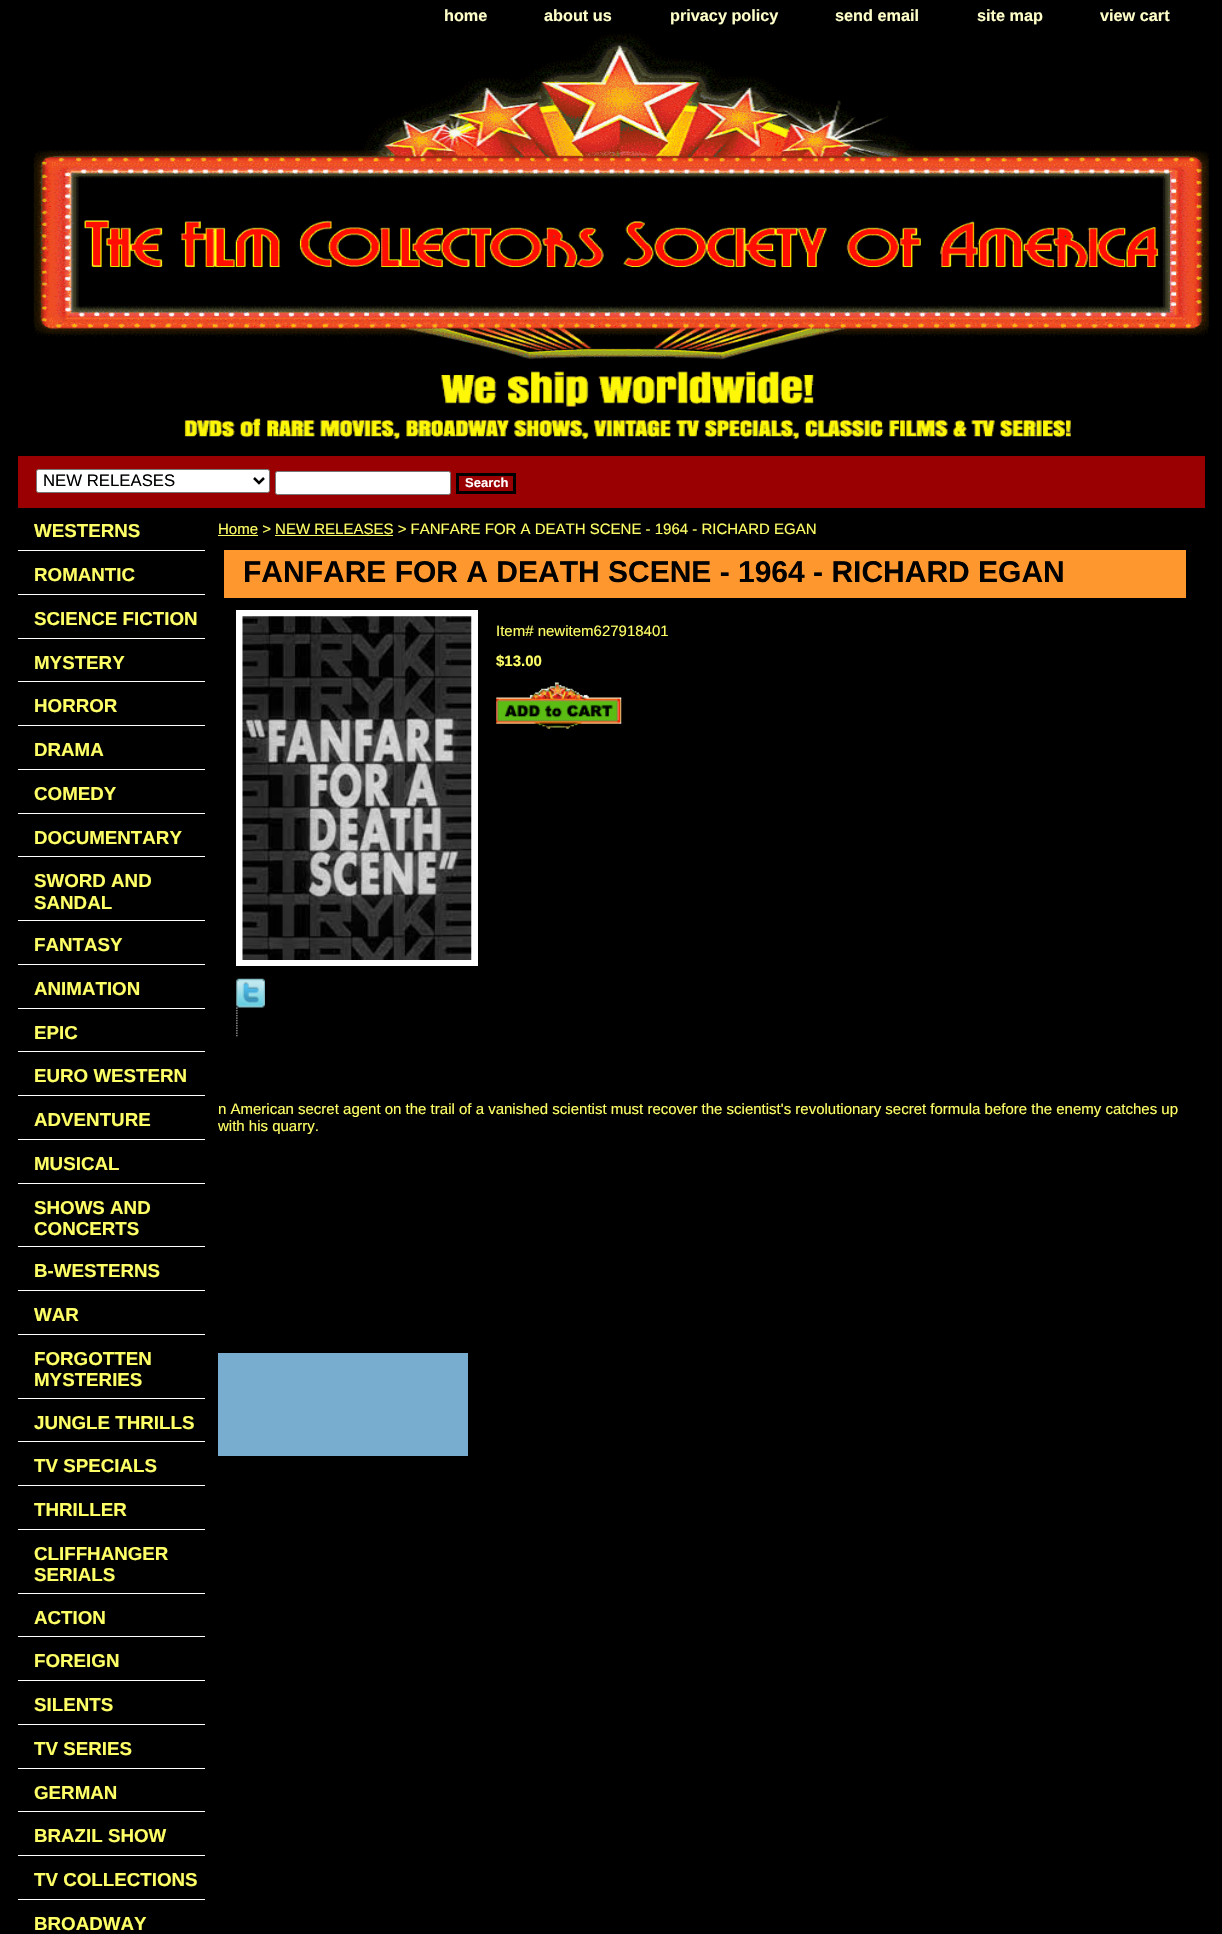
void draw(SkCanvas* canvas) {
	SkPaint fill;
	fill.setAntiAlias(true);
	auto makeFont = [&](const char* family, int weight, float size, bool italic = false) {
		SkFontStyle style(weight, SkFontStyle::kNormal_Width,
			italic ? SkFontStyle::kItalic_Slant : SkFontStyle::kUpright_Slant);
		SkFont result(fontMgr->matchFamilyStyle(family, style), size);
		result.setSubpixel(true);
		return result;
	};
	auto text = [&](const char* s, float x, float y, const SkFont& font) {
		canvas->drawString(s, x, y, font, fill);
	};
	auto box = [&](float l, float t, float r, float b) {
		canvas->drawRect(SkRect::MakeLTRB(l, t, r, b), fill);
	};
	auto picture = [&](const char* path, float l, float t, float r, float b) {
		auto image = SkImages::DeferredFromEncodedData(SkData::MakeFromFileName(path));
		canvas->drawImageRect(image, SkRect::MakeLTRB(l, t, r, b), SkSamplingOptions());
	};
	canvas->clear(0xFF000000);
	picture("image0.png", 33, 33, 1209, 440);
	fill.setColor(0xFF9A0002);
	box(18, 456, 1205, 508);
	fill.setColor(0xFFFFFFFF);
	canvas->drawRoundRect(SkRect::MakeLTRB(36.5f, 469.5f, 269.5f, 492.5f), 2, 2, fill);
	fill.setStyle(SkPaint::kStroke_Style);
	fill.setStrokeWidth(1);
	fill.setColor(0xFF767676);
	canvas->drawRoundRect(SkRect::MakeLTRB(36.5f, 469.5f, 269.5f, 492.5f), 2, 2, fill);
	fill.setStrokeWidth(2.5f);
	fill.setColor(0xFF000000);
	canvas->drawPath(SkPathBuilder().moveTo(254, 478).lineTo(259, 483).lineTo(264, 478).detach(), fill);
	fill.setStyle(SkPaint::kFill_Style);
	fill.setColor(0xFFFFFFFF);
	canvas->drawRoundRect(SkRect::MakeLTRB(275.5f, 471.5f, 450.5f, 494.5f), 2, 2, fill);
	fill.setStyle(SkPaint::kStroke_Style);
	fill.setStrokeWidth(1);
	fill.setColor(0xFF767676);
	canvas->drawRoundRect(SkRect::MakeLTRB(275.5f, 471.5f, 450.5f, 494.5f), 2, 2, fill);
	fill.setStrokeWidth(3);
	fill.setColor(0xFF000000);
	canvas->drawRect(SkRect::MakeLTRB(457.5f, 474.5f, 514.5f, 492.5f), fill);
	fill.setStyle(SkPaint::kFill_Style);
	fill.setColor(0xFFFFFFFF);
	box(18, 550, 205, 551);
	box(18, 594, 205, 595);
	box(18, 638, 205, 639);
	box(18, 681, 205, 682);
	box(18, 725, 205, 726);
	box(18, 769, 205, 770);
	box(18, 813, 205, 814);
	box(18, 856, 205, 857);
	box(18, 920, 205, 921);
	box(18, 964, 205, 965);
	box(18, 1008, 205, 1009);
	box(18, 1051, 205, 1052);
	box(18, 1095, 205, 1096);
	box(18, 1139, 205, 1140);
	box(18, 1183, 205, 1184);
	box(18, 1246, 205, 1247);
	box(18, 1290, 205, 1291);
	box(18, 1334, 205, 1335);
	box(18, 1398, 205, 1399);
	box(18, 1441, 205, 1442);
	box(18, 1485, 205, 1486);
	box(18, 1529, 205, 1530);
	box(18, 1593, 205, 1594);
	box(18, 1636, 205, 1637);
	box(18, 1680, 205, 1681);
	box(18, 1724, 205, 1725);
	box(18, 1768, 205, 1769);
	box(18, 1811, 205, 1812);
	box(18, 1855, 205, 1856);
	box(18, 1899, 205, 1900);
	fill.setColor(0xFFFFFF66);
	box(218, 535, 258, 536);
	box(275, 535, 393, 536);
	fill.setColor(0xFFFF972F);
	box(224, 550, 1186, 598);
	fill.setColor(0xFFFFFFFF);
	box(236, 610, 478, 966);
	picture("image1.png", 242, 616, 472, 960);
	picture("image2.png", 496, 682, 622, 729);
	picture("image3.png", 236, 978, 265, 1008);
	picture("image4.png", 236, 1007, 238, 1037);
	fill.setColor(0xFF78ADD0);
	box(218, 1353, 468, 1456);
	auto font1 = makeFont("Liberation Sans", 700, 16.25f);
	fill.setColor(0xFFFFFFC9);
	text("home", 444, 21, font1);
	text("about us", 544, 21, font1);
	text("privacy policy", 670, 21, font1);
	text("send email", 835, 21, font1);
	text("site map", 977, 21, font1);
	text("view cart", 1100, 21, font1);
	auto font2 = makeFont("Liberation Sans", 400, 16.75f);
	fill.setColor(0xFF000000);
	text("NEW RELEASES", 43, 486, font2);
	auto font3 = makeFont("Liberation Sans", 700, 13);
	fill.setColor(0xFFFFFFFF);
	text("Search", 465, 487, font3);
	auto font4 = makeFont("Liberation Sans", 700, 18.75f);
	fill.setColor(0xFFFFFF66);
	text("WESTERNS", 34, 537, font4);
	text("ROMANTIC", 34, 581, font4);
	text("SCIENCE FICTION", 34, 625, font4);
	text("MYSTERY", 34, 669, font4);
	text("HORROR", 34, 712, font4);
	text("DRAMA", 34, 756, font4);
	text("COMEDY", 34, 800, font4);
	text("DOCUMENTARY", 34, 844, font4);
	text("SWORD AND", 34, 887, font4);
	text("SANDAL", 34, 909, font4);
	text("FANTASY", 34, 951, font4);
	text("ANIMATION", 34, 995, font4);
	text("EPIC", 34, 1039, font4);
	text("EURO WESTERN", 34, 1082, font4);
	text("ADVENTURE", 34, 1126, font4);
	text("MUSICAL", 34, 1170, font4);
	text("SHOWS AND", 34, 1214, font4);
	text("CONCERTS", 34, 1235, font4);
	text("B-WESTERNS", 34, 1277, font4);
	text("WAR", 34, 1321, font4);
	text("FORGOTTEN", 34, 1365, font4);
	text("MYSTERIES", 34, 1386, font4);
	text("JUNGLE THRILLS", 34, 1429, font4);
	text("TV SPECIALS", 34, 1472, font4);
	text("THRILLER", 34, 1516, font4);
	text("CLIFFHANGER", 34, 1560, font4);
	text("SERIALS", 34, 1581, font4);
	text("ACTION", 34, 1624, font4);
	text("FOREIGN", 34, 1667, font4);
	text("SILENTS", 34, 1711, font4);
	text("TV SERIES", 34, 1755, font4);
	text("GERMAN", 34, 1799, font4);
	text("BRAZIL SHOW", 34, 1842, font4);
	text("TV COLLECTIONS", 34, 1886, font4);
	text("BROADWAY", 34, 1930, font4);
	auto font5 = makeFont("Liberation Sans", 400, 15);
	text("Home > NEW RELEASES > FANFARE FOR A DEATH SCENE - 1964 - RICHARD EGAN", 218, 534, font5);
	auto font6 = makeFont("Liberation Sans", 700, 30);
	fill.setColor(0xFF000000);
	text("FANFARE FOR A DEATH SCENE - 1964 - RICHARD EGAN", 243, 582, font6);
	fill.setColor(0xFFFFFF66);
	text("Item# newitem627918401", 496, 636, font5);
	auto font7 = makeFont("Liberation Sans", 700, 15);
	text("$13.00", 496, 666, font7);
	text("n American secret agent on the trail of a vanished scientist must recover the scientist's revolutionary secret formula before the enemy catches up", 218, 1114, font5);
	text("with his quarry.", 218, 1131, font5);
}
